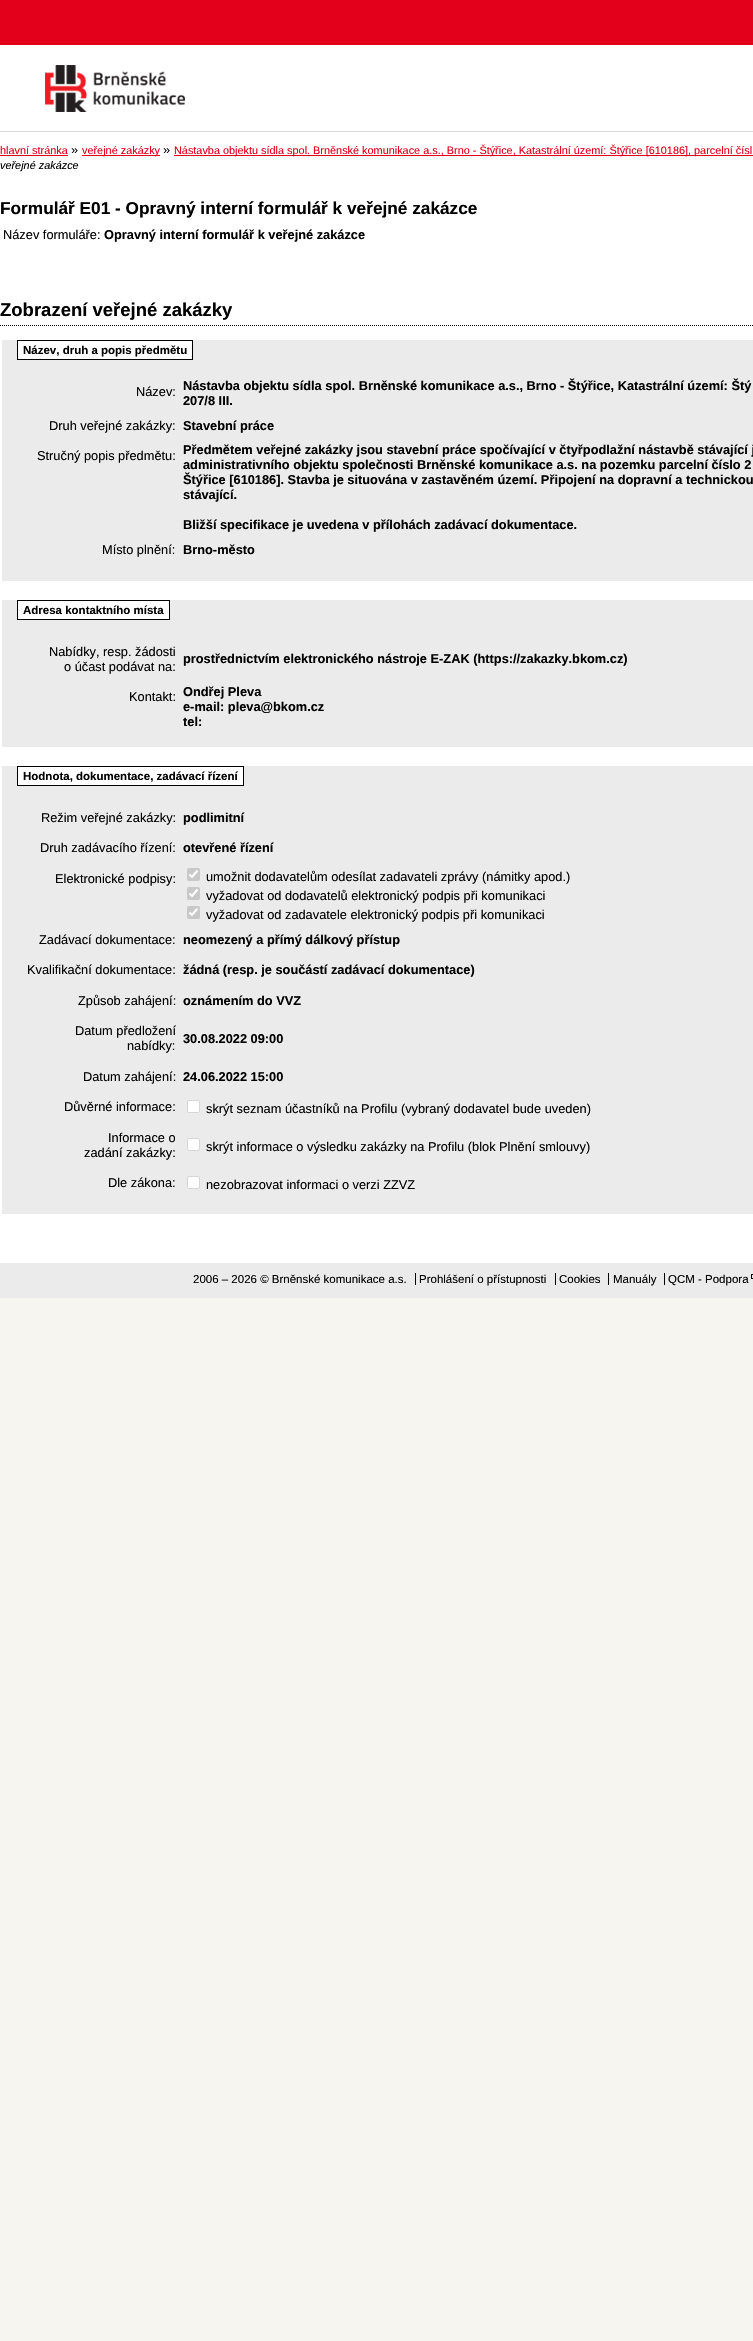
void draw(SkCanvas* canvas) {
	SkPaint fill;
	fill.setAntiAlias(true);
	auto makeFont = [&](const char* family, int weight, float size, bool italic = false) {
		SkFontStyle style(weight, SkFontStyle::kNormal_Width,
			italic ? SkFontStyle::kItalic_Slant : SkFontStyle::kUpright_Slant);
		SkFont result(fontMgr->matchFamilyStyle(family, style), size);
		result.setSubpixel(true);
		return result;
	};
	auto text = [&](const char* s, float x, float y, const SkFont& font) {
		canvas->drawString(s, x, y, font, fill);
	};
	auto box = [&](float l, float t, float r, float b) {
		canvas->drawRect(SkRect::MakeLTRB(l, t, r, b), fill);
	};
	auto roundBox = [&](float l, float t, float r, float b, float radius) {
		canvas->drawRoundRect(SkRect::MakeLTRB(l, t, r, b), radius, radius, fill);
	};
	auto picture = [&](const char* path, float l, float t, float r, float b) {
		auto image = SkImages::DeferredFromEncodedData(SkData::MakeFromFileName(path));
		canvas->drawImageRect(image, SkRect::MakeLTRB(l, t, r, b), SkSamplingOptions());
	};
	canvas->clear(0xFFF7F5EF);
	picture("image0.png", 0, 0, 753, 132);
	picture("image1.png", 45, 65, 185, 112);
	fill.setColor(0xFFFFFFFF);
	box(0, 132, 753, 1263);
	fill.setColor(0xFFE2001A);
	box(0, 155, 68, 156);
	box(82, 155, 160, 156);
	box(174, 155, 753, 156);
	fill.setStyle(SkPaint::kStroke_Style);
	fill.setStrokeWidth(1);
	fill.setColor(0xFF000000);
	fill.setPathEffect(SkDashPathEffect::Make({{1, 1}}, 0));
	canvas->drawPath(SkPathBuilder().moveTo(0, 325.5f).lineTo(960, 325.5f).detach(), fill);
	fill.setPathEffect(nullptr);
	fill.setStyle(SkPaint::kFill_Style);
	fill.setColor(0xFFEBEBEB);
	box(2, 340, 753, 581);
	fill.setColor(0xFFFFFFFF);
	canvas->drawRect(SkRect::MakeLTRB(17.5f, 340.5f, 192.5f, 359.5f), fill);
	fill.setStyle(SkPaint::kStroke_Style);
	fill.setColor(0xFF000000);
	canvas->drawRect(SkRect::MakeLTRB(17.5f, 340.5f, 192.5f, 359.5f), fill);
	fill.setStyle(SkPaint::kFill_Style);
	fill.setColor(0xFFEBEBEB);
	box(2, 600, 753, 747);
	fill.setColor(0xFFFFFFFF);
	canvas->drawRect(SkRect::MakeLTRB(17.5f, 600.5f, 169.5f, 619.5f), fill);
	fill.setStyle(SkPaint::kStroke_Style);
	fill.setColor(0xFF000000);
	canvas->drawRect(SkRect::MakeLTRB(17.5f, 600.5f, 169.5f, 619.5f), fill);
	fill.setStyle(SkPaint::kFill_Style);
	fill.setColor(0xFFEBEBEB);
	box(2, 766, 753, 1214);
	fill.setColor(0xFFFFFFFF);
	canvas->drawRect(SkRect::MakeLTRB(17.5f, 766.5f, 243.5f, 785.5f), fill);
	fill.setStyle(SkPaint::kStroke_Style);
	fill.setColor(0xFF000000);
	canvas->drawRect(SkRect::MakeLTRB(17.5f, 766.5f, 243.5f, 785.5f), fill);
	fill.setStyle(SkPaint::kFill_Style);
	fill.setColor(0xFFC8C8C8);
	roundBox(187, 868, 200, 881, 2);
	fill.setStyle(SkPaint::kStroke_Style);
	fill.setStrokeWidth(2.1f);
	fill.setColor(0xFFFFFFFF);
	canvas->drawPath(SkPathBuilder().moveTo(189.5f, 874.5f).lineTo(192, 877).lineTo(197.5f, 870.5f).detach(), fill);
	fill.setStyle(SkPaint::kFill_Style);
	fill.setColor(0xFFC8C8C8);
	roundBox(187, 887, 200, 900, 2);
	fill.setStyle(SkPaint::kStroke_Style);
	fill.setColor(0xFFFFFFFF);
	canvas->drawPath(SkPathBuilder().moveTo(189.5f, 893.5f).lineTo(192, 896).lineTo(197.5f, 889.5f).detach(), fill);
	fill.setStyle(SkPaint::kFill_Style);
	fill.setColor(0xFFC8C8C8);
	roundBox(187, 906, 200, 919, 2);
	fill.setStyle(SkPaint::kStroke_Style);
	fill.setColor(0xFFFFFFFF);
	canvas->drawPath(SkPathBuilder().moveTo(189.5f, 912.5f).lineTo(192, 915).lineTo(197.5f, 908.5f).detach(), fill);
	fill.setStyle(SkPaint::kFill_Style);
	canvas->drawRoundRect(SkRect::MakeLTRB(187.5f, 1100.5f, 199.5f, 1112.5f), 1.5f, 1.5f, fill);
	fill.setStyle(SkPaint::kStroke_Style);
	fill.setStrokeWidth(1);
	fill.setColor(0xFFD6D6D6);
	canvas->drawRoundRect(SkRect::MakeLTRB(187.5f, 1100.5f, 199.5f, 1112.5f), 1.5f, 1.5f, fill);
	fill.setStyle(SkPaint::kFill_Style);
	fill.setColor(0xFFFFFFFF);
	canvas->drawRoundRect(SkRect::MakeLTRB(187.5f, 1138.5f, 199.5f, 1150.5f), 1.5f, 1.5f, fill);
	fill.setStyle(SkPaint::kStroke_Style);
	fill.setColor(0xFFD6D6D6);
	canvas->drawRoundRect(SkRect::MakeLTRB(187.5f, 1138.5f, 199.5f, 1150.5f), 1.5f, 1.5f, fill);
	fill.setStyle(SkPaint::kFill_Style);
	fill.setColor(0xFFFFFFFF);
	canvas->drawRoundRect(SkRect::MakeLTRB(187.5f, 1176.5f, 199.5f, 1188.5f), 1.5f, 1.5f, fill);
	fill.setStyle(SkPaint::kStroke_Style);
	fill.setColor(0xFFD6D6D6);
	canvas->drawRoundRect(SkRect::MakeLTRB(187.5f, 1176.5f, 199.5f, 1188.5f), 1.5f, 1.5f, fill);
	fill.setStyle(SkPaint::kFill_Style);
	fill.setColor(0xFFEBEBEB);
	box(0, 1263, 753, 1298);
	fill.setColor(0xFF000000);
	box(415, 1273, 416, 1285);
	box(555, 1273, 556, 1285);
	box(608, 1273, 609, 1285);
	box(664, 1273, 665, 1285);
	picture("image2.png", 751, 1274, 753, 1279);
	auto font1 = makeFont("Liberation Sans", 400, 10.88f);
	fill.setColor(0xFFE2001A);
	text("hlavní stránka", 0, 154, font1);
	auto font2 = makeFont("Liberation Sans", 400, 12.8f);
	fill.setColor(0xFF000000);
	text("»", 71, 154, font2);
	fill.setColor(0xFFE2001A);
	text("veřejné zakázky", 82, 154, font1);
	fill.setColor(0xFF000000);
	text("»", 163, 154, font2);
	fill.setColor(0xFFE2001A);
	text("Nástavba objektu sídla spol. Brněnské komunikace a.s., Brno - Štýřice, Katastrální území: Štýřice [610186], parcelní čísl", 174, 154, font1);
	auto font3 = makeFont("Liberation Sans", 400, 10.88f, true);
	fill.setColor(0xFF000000);
	text("veřejné zakázce", 0, 169, font3);
	auto font4 = makeFont("Liberation Sans", 700, 17.25f);
	text("Formulář E01 - Opravný interní formulář k veřejné zakázce", 0, 214, font4);
	text("Název formuláře:", 3, 239, font2);
	auto font5 = makeFont("Liberation Sans", 700, 12.8f);
	text("Opravný interní formulář k veřejné zakázce", 104, 239, font5);
	auto font6 = makeFont("Liberation Sans", 700, 18.5f);
	text("Zobrazení veřejné zakázky", 0, 316, font6);
	auto font7 = makeFont("Liberation Sans", 700, 11.5f);
	text("Název, druh a popis předmětu", 23, 354, font7);
	text("Název:", 136, 396, font2);
	text("Nástavba objektu sídla spol. Brněnské komunikace a.s., Brno - Štýřice, Katastrální území: Štý", 183, 390, font5);
	text("207/8 III.", 183, 405, font5);
	text("Druh veřejné zakázky:", 49, 430, font2);
	text("Stavební práce", 183, 430, font5);
	text("Stručný popis předmětu:", 37, 460, font2);
	text("Předmětem veřejné zakázky jsou stavební práce spočívající v čtyřpodlažní nástavbě stávající j", 183, 454, font5);
	text("administrativního objektu společnosti Brněnské komunikace a.s. na pozemku parcelní číslo 2", 183, 469, font5);
	text("Štýřice [610186]. Stavba je situována v zastavěném území. Připojení na dopravní a technickou", 183, 484, font5);
	text("stávající.", 183, 499, font5);
	text("Bližší specifikace je uvedena v přílohách zadávací dokumentace.", 183, 529, font5);
	text("Místo plnění:", 102, 554, font2);
	text("Brno-město", 183, 554, font5);
	text("Adresa kontaktního místa", 23, 614, font7);
	text("Nabídky, resp. žádosti", 49, 656, font2);
	text("o účast podávat na:", 64, 671, font2);
	text("prostřednictvím elektronického nástroje E-ZAK (https://zakazky.bkom.cz)", 183, 663, font5);
	text("Kontakt:", 129, 701, font2);
	text("Ondřej Pleva", 183, 696, font5);
	text("e-mail: pleva@bkom.cz", 183, 711, font5);
	text("tel:", 183, 726, font5);
	text("Hodnota, dokumentace, zadávací řízení", 23, 780, font7);
	text("Režim veřejné zakázky:", 41, 822, font2);
	text("podlimitní", 183, 822, font5);
	text("Druh zadávacího řízení:", 40, 852, font2);
	text("otevřené řízení", 183, 852, font5);
	text("Elektronické podpisy:", 55, 883, font2);
	text("umožnit dodavatelům odesílat zadavateli zprávy (námitky apod.)", 206, 881, font2);
	text("vyžadovat od dodavatelů elektronický podpis při komunikaci", 206, 900, font2);
	text("vyžadovat od zadavatele elektronický podpis při komunikaci", 206, 919, font2);
	text("Zadávací dokumentace:", 39, 944, font2);
	text("neomezený a přímý dálkový přístup", 183, 944, font5);
	text("Kvalifikační dokumentace:", 27, 974, font2);
	text("žádná (resp. je součástí zadávací dokumentace)", 183, 974, font5);
	text("Způsob zahájení:", 78, 1005, font2);
	text("oznámením do VVZ", 183, 1005, font5);
	text("Datum předložení", 75, 1035, font2);
	text("nabídky:", 127, 1050, font2);
	text("30.08.2022 09:00", 183, 1043, font5);
	text("Datum zahájení:", 83, 1081, font2);
	text("24.06.2022 15:00", 183, 1081, font5);
	text("Důvěrné informace:", 64, 1111, font2);
	text("skrýt seznam účastníků na Profilu (vybraný dodavatel bude uveden)", 206, 1113, font2);
	text("Informace o", 108, 1142, font2);
	text("zadání zakázky:", 84, 1157, font2);
	text("skrýt informace o výsledku zakázky na Profilu (blok Plnění smlouvy)", 206, 1151, font2);
	text("Dle zákona:", 108, 1187, font2);
	text("nezobrazovat informaci o verzi ZZVZ", 206, 1189, font2);
	auto font8 = makeFont("Liberation Sans", 400, 11.5f);
	text("2006 – 2026 © Brněnské komunikace a.s.", 193, 1283, font8);
	text("Prohlášení o přístupnosti", 419, 1283, font8);
	text("Cookies", 559, 1283, font8);
	text("Manuály", 613, 1283, font8);
	text("QCM - Podpora", 668, 1283, font8);
}
